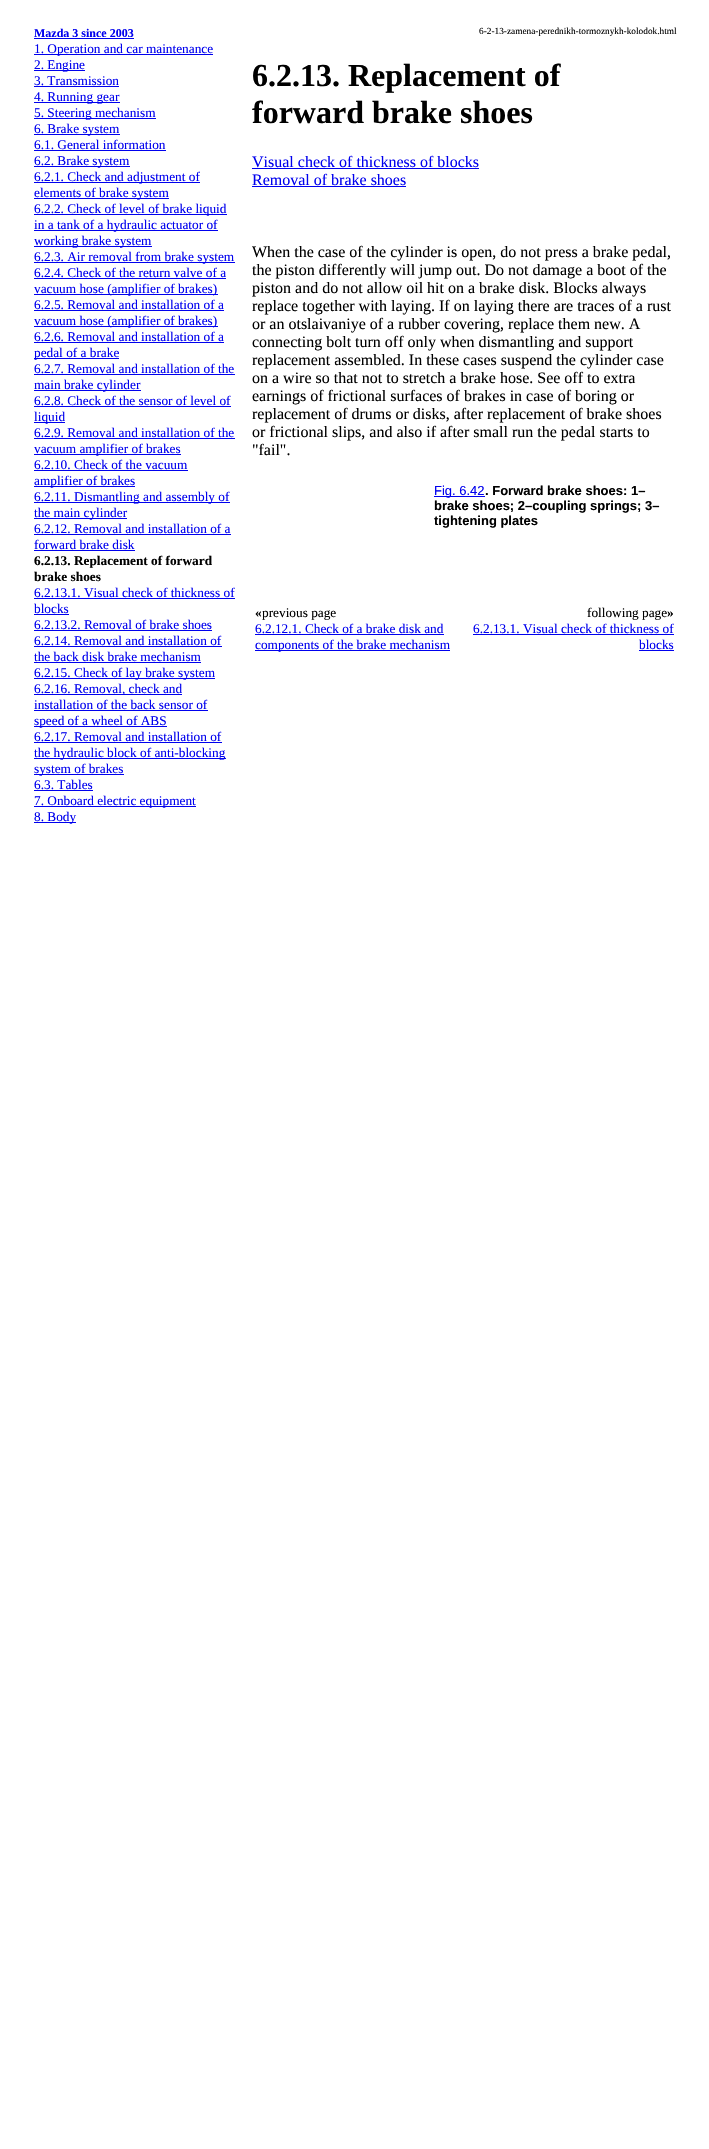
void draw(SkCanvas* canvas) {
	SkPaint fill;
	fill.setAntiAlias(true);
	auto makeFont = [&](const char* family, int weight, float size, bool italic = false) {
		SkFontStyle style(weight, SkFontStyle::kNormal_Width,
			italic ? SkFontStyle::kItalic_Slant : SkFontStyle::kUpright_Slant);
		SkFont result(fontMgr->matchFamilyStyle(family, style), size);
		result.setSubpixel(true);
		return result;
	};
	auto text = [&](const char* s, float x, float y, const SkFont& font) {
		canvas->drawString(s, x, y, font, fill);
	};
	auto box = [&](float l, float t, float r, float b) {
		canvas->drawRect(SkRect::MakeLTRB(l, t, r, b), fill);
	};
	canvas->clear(0xFFFFFFFF);
	fill.setColor(0xFF0000EE);
	box(34, 38, 134, 39);
	box(34, 54, 213, 55);
	box(34, 70, 85, 71);
	box(34, 86, 119, 87);
	box(34, 102, 120, 103);
	box(34, 118, 156, 119);
	box(34, 134, 120, 135);
	box(34, 150, 166, 151);
	box(34, 166, 130, 167);
	box(34, 182, 200, 183);
	box(34, 198, 169, 199);
	box(34, 214, 227, 215);
	box(34, 230, 218, 231);
	box(34, 246, 152, 247);
	box(34, 262, 235, 263);
	box(34, 278, 226, 279);
	box(34, 294, 218, 295);
	box(34, 310, 224, 311);
	box(34, 326, 218, 327);
	box(34, 342, 224, 343);
	box(34, 358, 119, 359);
	box(34, 374, 235, 375);
	box(34, 390, 141, 391);
	box(34, 406, 231, 407);
	box(34, 422, 65, 423);
	box(34, 438, 235, 439);
	box(34, 454, 181, 455);
	box(34, 470, 188, 471);
	box(34, 486, 135, 487);
	box(34, 502, 230, 503);
	box(34, 518, 127, 519);
	box(34, 534, 231, 535);
	box(34, 550, 135, 551);
	box(34, 598, 235, 599);
	box(34, 614, 69, 615);
	box(34, 630, 212, 631);
	box(34, 646, 222, 647);
	box(34, 662, 201, 663);
	box(34, 678, 215, 679);
	box(34, 694, 182, 695);
	box(34, 710, 208, 711);
	box(34, 726, 167, 727);
	box(34, 742, 222, 743);
	box(34, 758, 226, 759);
	box(34, 774, 124, 775);
	box(34, 790, 93, 791);
	box(34, 806, 196, 807);
	box(34, 822, 76, 823);
	box(252, 168, 479, 169);
	box(252, 186, 406, 187);
	box(434, 496, 485, 497);
	box(255, 634, 444, 635);
	box(255, 650, 450, 651);
	box(473, 634, 674, 635);
	box(639, 650, 674, 651);
	auto font1 = makeFont("Liberation Serif", 700, 12);
	text("Mazda 3 since 2003", 34, 37, font1);
	auto font2 = makeFont("Liberation Serif", 400, 13.3f);
	text("1. Operation and car maintenance", 34, 53, font2);
	text("2. Engine", 34, 69, font2);
	text("3. Transmission", 34, 85, font2);
	text("4. Running gear", 34, 101, font2);
	text("5. Steering mechanism", 34, 117, font2);
	text("6. Brake system", 34, 133, font2);
	text("6.1. General information", 34, 149, font2);
	text("6.2. Brake system", 34, 165, font2);
	text("6.2.1. Check and adjustment of", 34, 181, font2);
	text("elements of brake system", 34, 197, font2);
	text("6.2.2. Check of level of brake liquid", 34, 213, font2);
	text("in a tank of a hydraulic actuator of", 34, 229, font2);
	text("working brake system", 34, 245, font2);
	text("6.2.3. Air removal from brake system", 34, 261, font2);
	text("6.2.4. Check of the return valve of a", 34, 277, font2);
	text("vacuum hose (amplifier of brakes)", 34, 293, font2);
	text("6.2.5. Removal and installation of a", 34, 309, font2);
	text("vacuum hose (amplifier of brakes)", 34, 325, font2);
	text("6.2.6. Removal and installation of a", 34, 341, font2);
	text("pedal of a brake", 34, 357, font2);
	text("6.2.7. Removal and installation of the", 34, 373, font2);
	text("main brake cylinder", 34, 389, font2);
	text("6.2.8. Check of the sensor of level of", 34, 405, font2);
	text("liquid", 34, 421, font2);
	text("6.2.9. Removal and installation of the", 34, 437, font2);
	text("vacuum amplifier of brakes", 34, 453, font2);
	text("6.2.10. Check of the vacuum", 34, 469, font2);
	text("amplifier of brakes", 34, 485, font2);
	text("6.2.11. Dismantling and assembly of", 34, 501, font2);
	text("the main cylinder", 34, 517, font2);
	text("6.2.12. Removal and installation of a", 34, 533, font2);
	text("forward brake disk", 34, 549, font2);
	auto font3 = makeFont("Liberation Serif", 700, 13.3f);
	fill.setColor(0xFF000000);
	text("6.2.13. Replacement of forward", 34, 565, font3);
	text("brake shoes", 34, 581, font3);
	fill.setColor(0xFF0000EE);
	text("6.2.13.1. Visual check of thickness of", 34, 597, font2);
	text("blocks", 34, 613, font2);
	text("6.2.13.2. Removal of brake shoes", 34, 629, font2);
	text("6.2.14. Removal and installation of", 34, 645, font2);
	text("the back disk brake mechanism", 34, 661, font2);
	text("6.2.15. Check of lay brake system", 34, 677, font2);
	text("6.2.16. Removal, check and", 34, 693, font2);
	text("installation of the back sensor of", 34, 709, font2);
	text("speed of a wheel of ABS", 34, 725, font2);
	text("6.2.17. Removal and installation of", 34, 741, font2);
	text("the hydraulic block of anti-blocking", 34, 757, font2);
	text("system of brakes", 34, 773, font2);
	text("6.3. Tables", 34, 789, font2);
	text("7. Onboard electric equipment", 34, 805, font2);
	text("8. Body", 34, 821, font2);
	auto font4 = makeFont("Liberation Serif", 400, 9.3f);
	fill.setColor(0xFF000000);
	text("6-2-13-zamena-perednikh-tormoznykh-kolodok.html", 479, 34, font4);
	auto font5 = makeFont("Liberation Serif", 700, 32);
	text("6.2.13. Replacement of", 252, 86, font5);
	text("forward brake shoes", 252, 123, font5);
	auto font6 = makeFont("Liberation Serif", 400, 16);
	fill.setColor(0xFF0000EE);
	text("Visual check of thickness of blocks", 252, 167, font6);
	text("Removal of brake shoes", 252, 185, font6);
	fill.setColor(0xFF000000);
	text("When the case of the cylinder is open, do not press a brake pedal,", 252, 257, font6);
	text("the piston differently will jump out. Do not damage a boot of the", 252, 275, font6);
	text("piston and do not allow oil hit on a brake disk. Blocks always", 252, 293, font6);
	text("replace together with laying. If on laying there are traces of a rust", 252, 311, font6);
	text("or an otslaivaniye of a rubber covering, replace them new. A", 252, 329, font6);
	text("connecting bolt turn off only when dismantling and support", 252, 347, font6);
	text("replacement assembled. In these cases suspend the cylinder case", 252, 365, font6);
	text("on a wire so that not to stretch a brake hose. See off to extra", 252, 383, font6);
	text("earnings of frictional surfaces of brakes in case of boring or", 252, 401, font6);
	text("replacement of drums or disks, after replacement of brake shoes", 252, 419, font6);
	text("or frictional slips, and also if after small run the pedal starts to", 252, 437, font6);
	text("\"fail\".", 252, 455, font6);
	auto font7 = makeFont("Liberation Sans", 400, 13);
	fill.setColor(0xFF0000EE);
	text("Fig. 6.42", 434, 495, font7);
	auto font8 = makeFont("Liberation Sans", 700, 13);
	fill.setColor(0xFF000000);
	text(". Forward brake shoes: 1–", 485, 495, font8);
	text("brake shoes; 2–coupling springs; 3–", 434, 510, font8);
	text("tightening plates", 434, 525, font8);
	text("«", 255, 617, font3);
	text("previous page", 262, 617, font2);
	fill.setColor(0xFF0000EE);
	text("6.2.12.1. Check of a brake disk and", 255, 633, font2);
	text("components of the brake mechanism", 255, 649, font2);
	fill.setColor(0xFF000000);
	text("following page", 587, 617, font2);
	text("»", 667, 617, font3);
	fill.setColor(0xFF0000EE);
	text("6.2.13.1. Visual check of thickness of", 473, 633, font2);
	text("blocks", 639, 649, font2);
}
